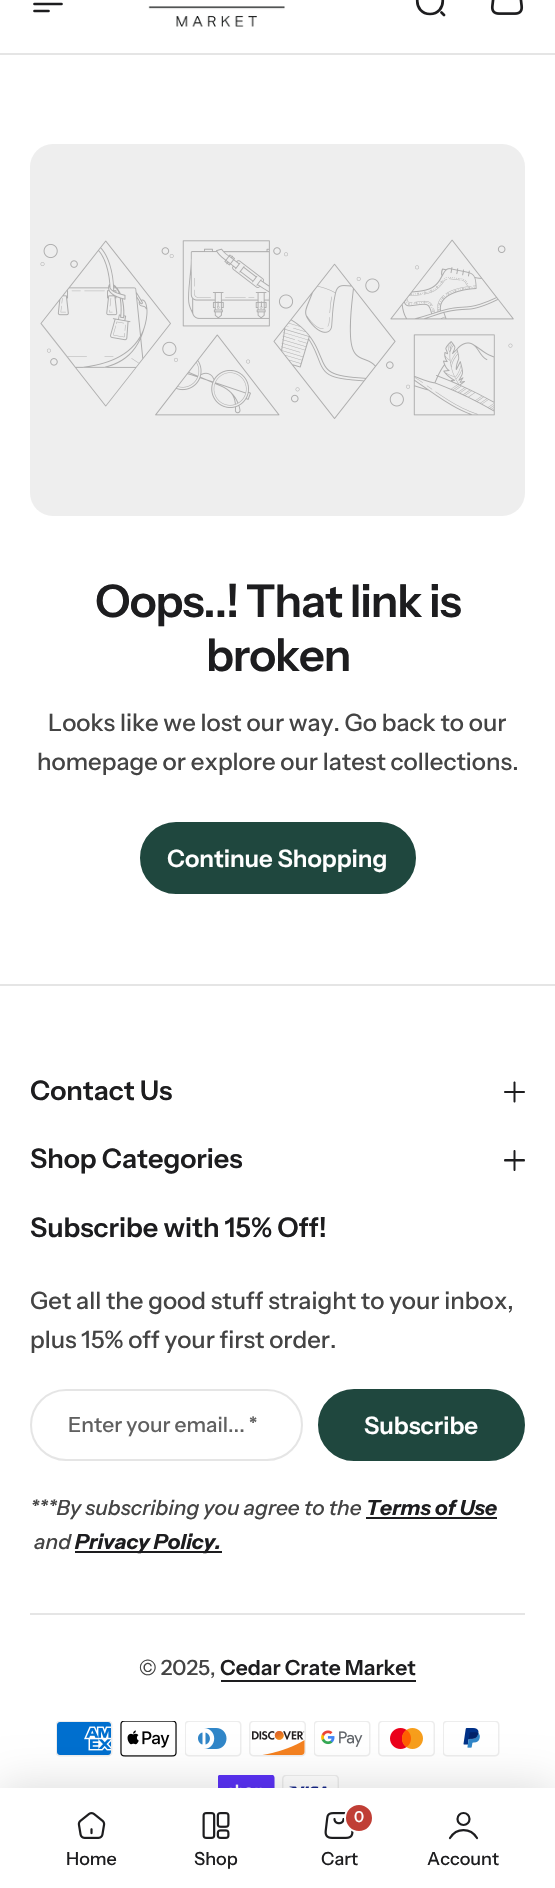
void draw(SkCanvas* canvas) {
	SkPaint fill;
	fill.setAntiAlias(true);
	auto makeFont = [&](const char* family, int weight, float size, bool italic = false) {
		SkFontStyle style(weight, SkFontStyle::kNormal_Width,
			italic ? SkFontStyle::kItalic_Slant : SkFontStyle::kUpright_Slant);
		SkFont result(fontMgr->matchFamilyStyle(family, style), size);
		result.setSubpixel(true);
		return result;
	};
	auto text = [&](const char* s, float x, float y, const SkFont& font) {
		canvas->drawString(s, x, y, font, fill);
	};
	auto spacedText = [&](const char* s, float x, float y, const SkFont& font, const SkPaint& ink, float letter, float word) {
		std::vector<SkGlyphID> glyphs(font.countText(s, strlen(s), SkTextEncoding::kUTF8));
		std::vector<float> xs(glyphs.size());
		font.textToGlyphs(s, strlen(s), SkTextEncoding::kUTF8, glyphs);
		font.getXPos(glyphs, xs, x);
		float extra = 0;
		for (size_t i = 0; i < glyphs.size(); i++) {
			xs[i] += extra;
			extra += letter + word * (glyphs[i] == font.unicharToGlyph(' '));
		}
		canvas->drawTextBlob(SkTextBlob::MakeFromPosHGlyphs(glyphs, xs, y, font), 0, 0, ink);
	};
	auto box = [&](float l, float t, float r, float b) {
		canvas->drawRect(SkRect::MakeLTRB(l, t, r, b), fill);
	};
	auto roundBox = [&](float l, float t, float r, float b, float radius) {
		canvas->drawRoundRect(SkRect::MakeLTRB(l, t, r, b), radius, radius, fill);
	};
	auto picture = [&](const char* path, float l, float t, float r, float b) {
		auto image = SkImages::DeferredFromEncodedData(SkData::MakeFromFileName(path));
		canvas->drawImageRect(image, SkRect::MakeLTRB(l, t, r, b), SkSamplingOptions());
	};
	canvas->clear(0xFFFFFFFF);
	fill.setColor(0xFFE5E5E5);
	box(0, 53, 555, 55);
	fill.setStyle(SkPaint::kStroke_Style);
	fill.setStrokeWidth(2.7f);
	fill.setStrokeCap(SkPaint::kRound_Cap);
	fill.setStrokeJoin(SkPaint::kRound_Join);
	fill.setColor(0xFF1D1D1F);
	canvas->drawPath(SkPathBuilder().moveTo(34.5f, 4).lineTo(61.5f, 4).moveTo(34.5f, 11).lineTo(48.5f, 11).detach(), fill);
	picture("image0.png", 148, 6, 285, 27);
	canvas->drawPath(SkPathBuilder().moveTo(430, 14).cubicTo(447, 14, 447, -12, 430, -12).cubicTo(413, -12, 413, 14, 430, 14).close().moveTo(444, 15).lineTo(441.5f, 12.5f).detach(), fill);
	picture("image1.png", 490, 0, 524, 15);
	fill.setStyle(SkPaint::kFill_Style);
	fill.setColor(0xFFEEEEEE);
	roundBox(30, 144, 525, 516, 23);
	picture("image2.png", 40, 239, 514, 419);
	fill.setColor(0xFF1F473E);
	canvas->drawRoundRect(SkRect::MakeLTRB(141, 823, 415, 893), 35, 35, fill);
	fill.setStyle(SkPaint::kStroke_Style);
	fill.setStrokeWidth(2);
	fill.setStrokeCap(SkPaint::kButt_Cap);
	fill.setStrokeJoin(SkPaint::kMiter_Join);
	canvas->drawRoundRect(SkRect::MakeLTRB(141, 823, 415, 893), 35, 35, fill);
	fill.setStyle(SkPaint::kFill_Style);
	fill.setColor(0xFFE5E5E5);
	box(0, 984, 555, 986);
	fill.setColor(0xFF1D1D1F);
	canvas->drawPath(SkPathBuilder().moveTo(513.5f, 1101.5f).lineTo(513.5f, 1082.5f).cubicTo(513.5f, 1082, 514, 1081.5f, 514.5f, 1081.5f).cubicTo(515, 1081.5f, 515.5f, 1082, 515.5f, 1082.5f).lineTo(515.5f, 1101.5f).cubicTo(515.5f, 1102, 515, 1102.5f, 514.5f, 1102.5f).cubicTo(514, 1102.5f, 513.5f, 1102, 513.5f, 1101.5f).close().detach(), fill);
	canvas->drawPath(SkPathBuilder().moveTo(504, 1092).cubicTo(504, 1091.5f, 504.5f, 1091, 505, 1091).lineTo(524, 1091).cubicTo(524.5f, 1091, 525, 1091.5f, 525, 1092).cubicTo(525, 1092.5f, 524.5f, 1093, 524, 1093).lineTo(505, 1093).cubicTo(504.5f, 1093, 504, 1092.5f, 504, 1092).close().detach(), fill);
	canvas->drawPath(SkPathBuilder().moveTo(513.5f, 1169.5f).lineTo(513.5f, 1151).cubicTo(513.5f, 1150.5f, 514, 1150, 514.5f, 1150).cubicTo(515, 1150, 515.5f, 1150.5f, 515.5f, 1151).lineTo(515.5f, 1169.5f).cubicTo(515.5f, 1170.5f, 515, 1171, 514.5f, 1171).cubicTo(514, 1171, 513.5f, 1170.5f, 513.5f, 1169.5f).close().detach(), fill);
	canvas->drawPath(SkPathBuilder().moveTo(504, 1160.5f).cubicTo(504, 1159.5f, 504.5f, 1159, 505, 1159).lineTo(524, 1159).cubicTo(524.5f, 1159, 525, 1159.5f, 525, 1160.5f).cubicTo(525, 1161, 524.5f, 1161.5f, 524, 1161.5f).lineTo(505, 1161.5f).cubicTo(504.5f, 1161.5f, 504, 1161, 504, 1160.5f).close().detach(), fill);
	fill.setStyle(SkPaint::kStroke_Style);
	fill.setColor(0xFFE5E5E5);
	canvas->drawRoundRect(SkRect::MakeLTRB(31, 1390, 302, 1460), 35, 35, fill);
	fill.setStyle(SkPaint::kFill_Style);
	fill.setColor(0xFF1F473E);
	canvas->drawRoundRect(SkRect::MakeLTRB(319, 1390, 524, 1460), 35, 35, fill);
	fill.setStyle(SkPaint::kStroke_Style);
	canvas->drawRoundRect(SkRect::MakeLTRB(319, 1390, 524, 1460), 35, 35, fill);
	fill.setStyle(SkPaint::kFill_Style);
	fill.setColor(0xFF1D1D1F);
	box(366, 1517, 497, 1519);
	box(75, 1551, 222, 1553);
	fill.setColor(0xFFE5E5E5);
	box(30, 1613, 525, 1615);
	fill.setColor(0xFF1D1D1F);
	box(221, 1680, 416, 1682);
	picture("image3.png", 56, 1721, 113, 1757);
	picture("image4.png", 120, 1721, 177, 1757);
	picture("image5.png", 185, 1721, 242, 1757);
	picture("image6.png", 249, 1721, 306, 1757);
	picture("image7.png", 314, 1721, 371, 1757);
	picture("image8.png", 378, 1721, 435, 1757);
	picture("image9.png", 443, 1721, 500, 1757);
	picture("image10.png", 218, 1775, 275, 1788);
	picture("image11.png", 282, 1775, 339, 1788);
	fill.setColor(0x26000000);
	fill.setMaskFilter(SkMaskFilter::MakeBlur(kNormal_SkBlurStyle, 22.5f));
	canvas->drawRect(SkRect::MakeLTRB(0, 1788, 555, 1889), fill);
	fill.setMaskFilter(nullptr);
	fill.setColor(0xFFFFFFFF);
	box(0, 1788, 555, 1888);
	picture("image12.png", 77, 1812, 106, 1839);
	picture("image13.png", 202, 1812, 230, 1839);
	picture("image14.png", 324, 1812, 354, 1839);
	fill.setColor(0xFFC03E35);
	canvas->drawCircle(359, 1818, 14, fill);
	fill.setStyle(SkPaint::kStroke_Style);
	fill.setColor(0xFFFFFFFF);
	canvas->drawCircle(359, 1818, 14, fill);
	fill.setStrokeWidth(2.2f);
	fill.setStrokeCap(SkPaint::kRound_Cap);
	fill.setColor(0xFF1D1D1F);
	canvas->drawPath(SkPathBuilder().moveTo(477, 1838).cubicTo(470.5f, 1827.5f, 456.5f, 1827.5f, 450, 1838).detach(), fill);
	fill.setStrokeCap(SkPaint::kButt_Cap);
	canvas->drawCircle(463.5f, 1819, 6, fill);
	auto font1 = makeFont("Instrument Sans", 600, 45);
	fill.setStyle(SkPaint::kFill_Style);
	spacedText("Oops..! That link is", 95, 617, font1, fill, -1.1f, 0);
	spacedText("broken", 206, 671, font1, fill, -1.1f, 0);
	auto font2 = makeFont("Instrument Sans", 500, 24);
	fill.setColor(0xFF444444);
	text("Looks like we lost our way. Go back to our", 48, 731, font2);
	text("homepage or explore our latest collections.", 37, 770, font2);
	auto font3 = makeFont("Instrument Sans", 600, 24);
	fill.setColor(0xFFFFFFFF);
	text("Continue Shopping", 167, 867, font3);
	auto font4 = makeFont("Instrument Sans", 600, 27);
	fill.setColor(0xFF1D1D1F);
	text("Contact Us", 30, 1100, font4);
	text("Shop Categories", 30, 1168, font4);
	text("Subscribe with 15% Off!", 30, 1237, font4);
	fill.setColor(0xFF444444);
	text("Get all the good stuff straight to your inbox,", 30, 1309, font2);
	text("plus 15% off your first order.", 30, 1348, font2);
	auto font5 = makeFont("Instrument Sans", 500, 21);
	fill.setColor(0xFF606060);
	text("Enter your email... *", 68, 1432, font5);
	fill.setColor(0xFFFFFFFF);
	text("Subscribe", 364, 1434, font3);
	auto font6 = makeFont("Instrument Sans", 500, 21, true);
	fill.setColor(0xFF444444);
	text("***By subscribing you agree to the", 30, 1515, font6);
	auto font7 = makeFont("Instrument Sans", 700, 21, true);
	fill.setColor(0xFF1D1D1F);
	text("Terms of Use", 366, 1515, font7);
	fill.setColor(0xFF444444);
	text("and", 34, 1549, font6);
	fill.setColor(0xFF1D1D1F);
	text("Privacy Policy.", 75, 1549, font7);
	fill.setColor(0xFF444444);
	text("© 2025,", 139, 1675, font5);
	auto font8 = makeFont("Instrument Sans", 600, 21);
	fill.setColor(0xFF1D1D1F);
	text("Cedar Crate Market", 220, 1675, font8);
	auto font9 = makeFont("Instrument Sans", 500, 18);
	text("Home", 66, 1865, font9);
	text("Shop", 194, 1865, font9);
	auto font10 = makeFont("Instrument Sans", 500, 15);
	fill.setColor(0xFFFFFFFF);
	text("0", 354, 1822, font10);
	fill.setColor(0xFF1D1D1F);
	text("Cart", 321, 1865, font9);
	text("Account", 427, 1865, font9);
}
